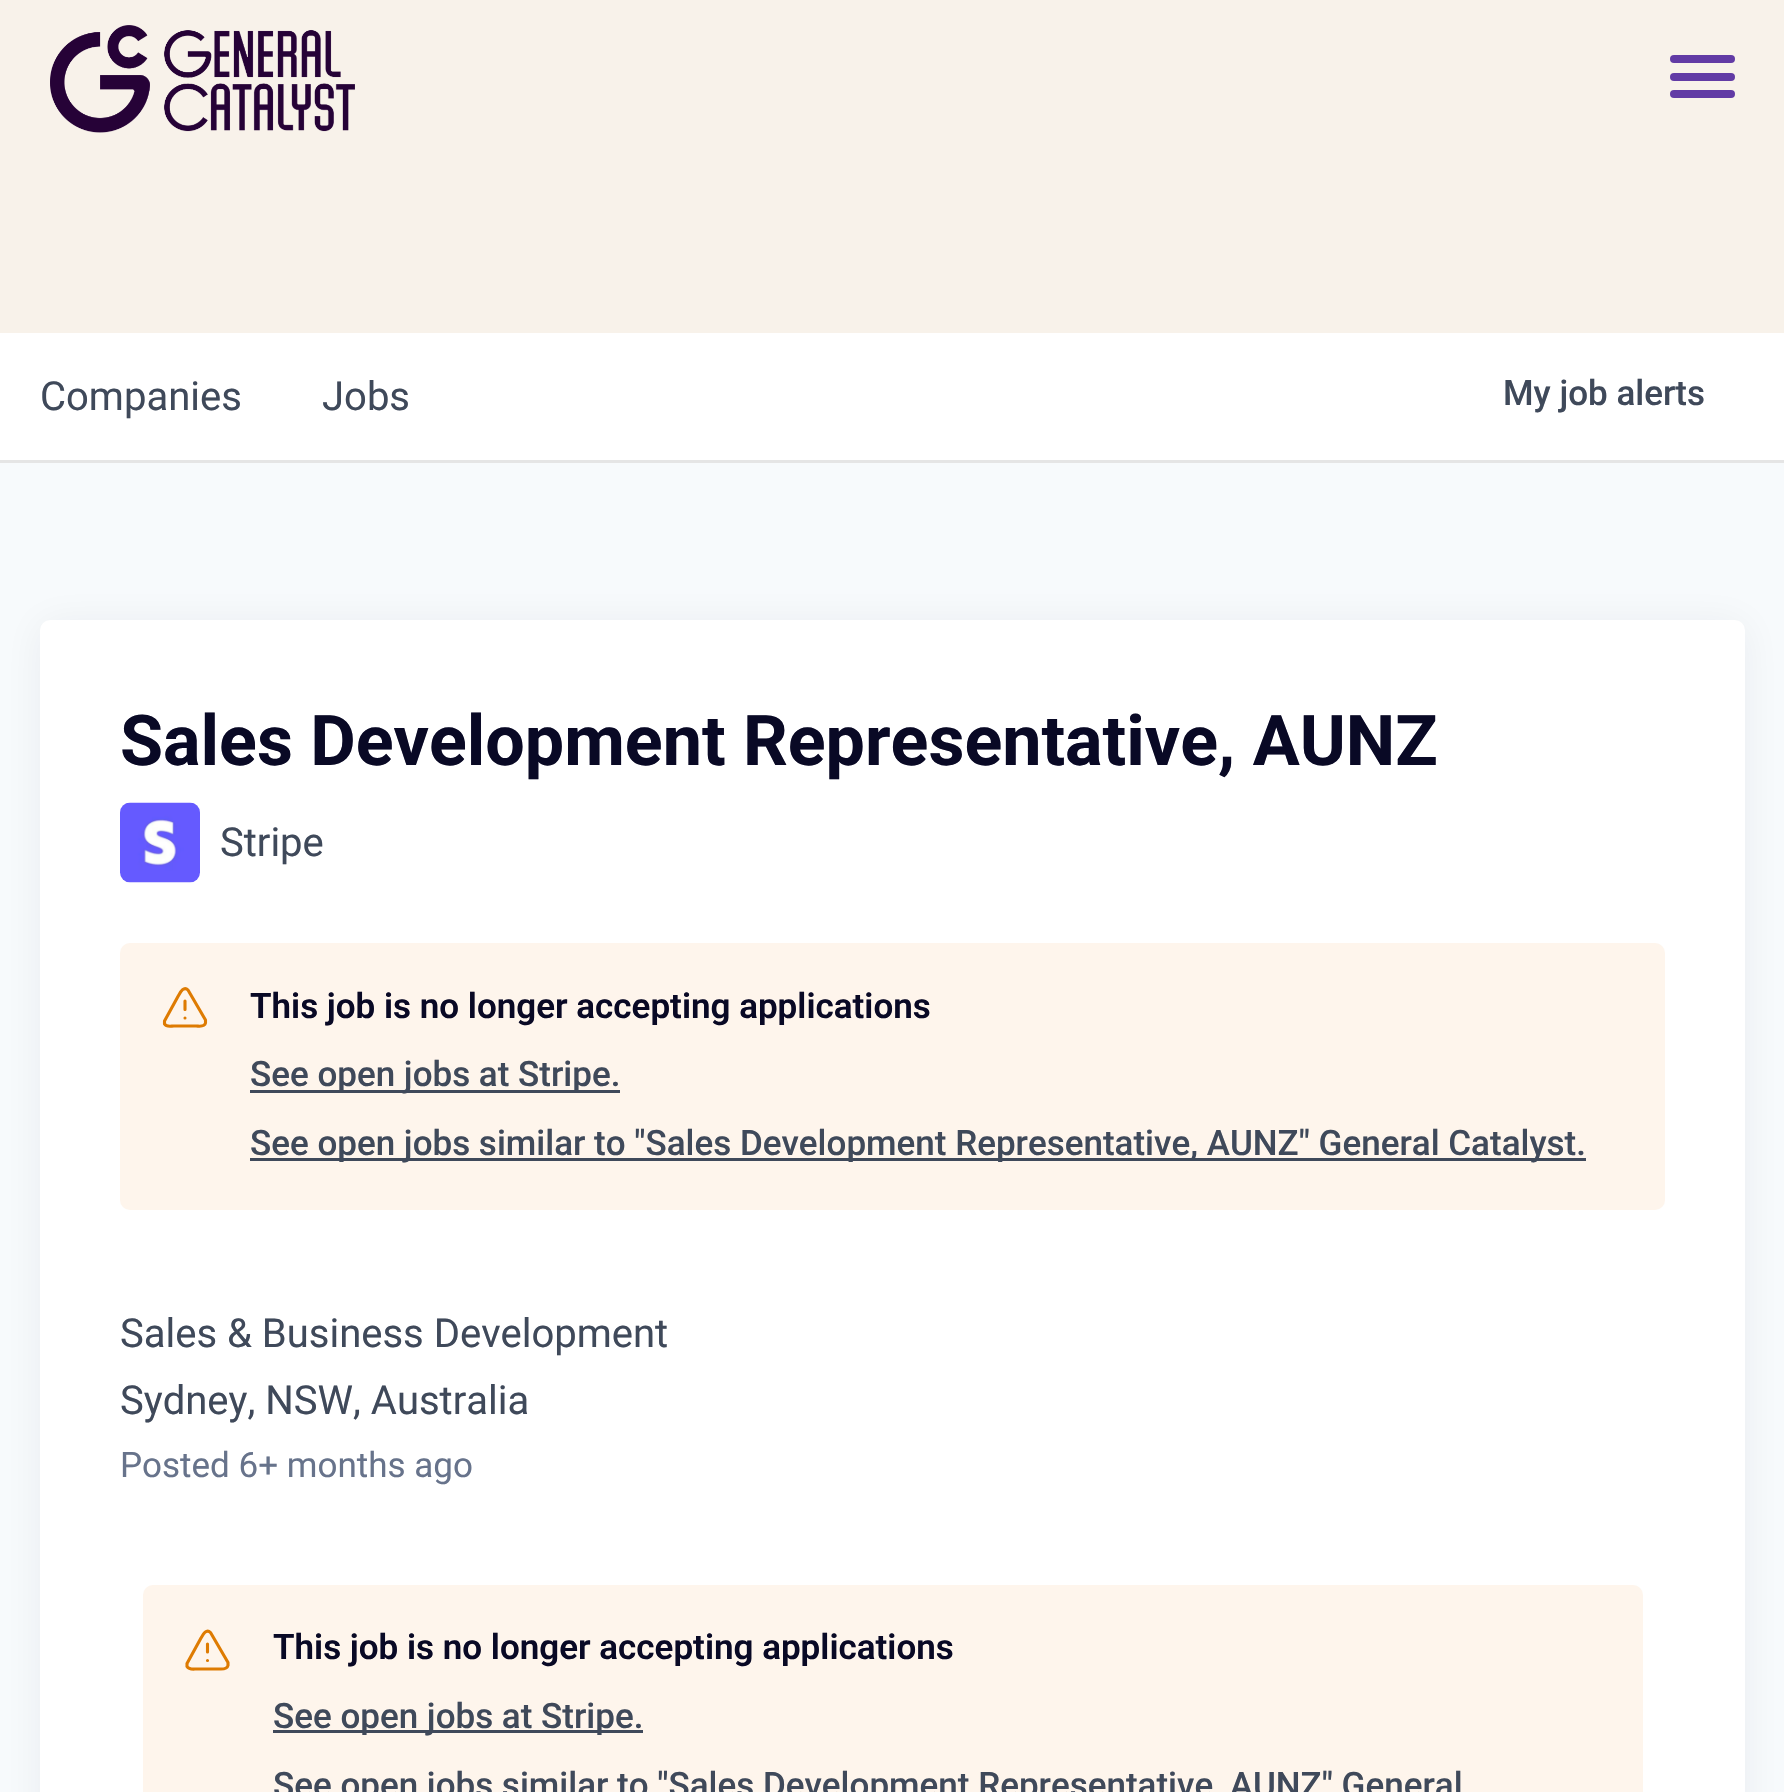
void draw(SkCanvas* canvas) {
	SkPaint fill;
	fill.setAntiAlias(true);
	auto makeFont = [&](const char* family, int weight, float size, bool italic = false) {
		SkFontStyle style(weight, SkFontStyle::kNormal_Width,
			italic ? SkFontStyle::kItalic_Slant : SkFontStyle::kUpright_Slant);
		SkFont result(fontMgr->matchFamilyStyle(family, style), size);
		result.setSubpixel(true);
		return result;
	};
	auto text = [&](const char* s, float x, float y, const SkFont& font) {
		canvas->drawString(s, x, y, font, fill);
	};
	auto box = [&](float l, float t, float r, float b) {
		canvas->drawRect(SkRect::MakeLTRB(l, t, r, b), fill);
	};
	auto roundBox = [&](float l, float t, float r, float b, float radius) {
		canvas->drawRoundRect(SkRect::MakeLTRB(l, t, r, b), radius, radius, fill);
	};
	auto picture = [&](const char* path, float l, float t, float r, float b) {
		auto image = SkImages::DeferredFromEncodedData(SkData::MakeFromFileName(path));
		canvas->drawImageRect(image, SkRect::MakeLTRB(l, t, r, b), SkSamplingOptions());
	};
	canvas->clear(0xFFF7FAFC);
	fill.setColor(0xFFF8F2EA);
	box(0, 0, 1784, 333);
	picture("image0.png", 50, 25, 355, 133);
	fill.setColor(0xFF623BA5);
	roundBox(1670, 55, 1735, 63, 4);
	roundBox(1670, 73, 1735, 81, 4);
	roundBox(1670, 90, 1735, 98, 4);
	fill.setColor(0xFFE5E5E5);
	box(0, 460, 1784, 463);
	fill.setColor(0xFFFFFFFF);
	box(0, 333, 1784, 460);
	fill.setColor(0x0F1B2432);
	fill.setMaskFilter(SkMaskFilter::MakeBlur(kNormal_SkBlurStyle, 20));
	canvas->drawRoundRect(SkRect::MakeLTRB(40, 623, 1745, 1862), 10, 10, fill);
	fill.setMaskFilter(nullptr);
	fill.setColor(0xFFFFFFFF);
	roundBox(40, 620, 1745, 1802, 10);
	picture("image1.png", 120, 802, 200, 883);
	fill.setColor(0xFFFEF5EC);
	roundBox(120, 943, 1665, 1210, 10);
	fill.setStyle(SkPaint::kStroke_Style);
	fill.setStrokeWidth(3.1f);
	fill.setStrokeCap(SkPaint::kRound_Cap);
	fill.setStrokeJoin(SkPaint::kRound_Join);
	fill.setColor(0xFFDE7B02);
	canvas->drawPath(SkPathBuilder().moveTo(205.5f, 1020).lineTo(188, 990).cubicTo(183.5f, 985.5f, 180, 993, 178.5f, 995.5f).lineTo(164.5f, 1021).lineTo(164.5f, 1024).cubicTo(166.5f, 1027.5f, 171, 1026, 174, 1026).lineTo(196, 1026).cubicTo(199, 1026, 204.5f, 1027.5f, 205.5f, 1023).close().moveTo(185, 1001).lineTo(185, 1009.5f).moveTo(185, 1018).lineTo(185, 1018).detach(), fill);
	fill.setStyle(SkPaint::kFill_Style);
	fill.setColor(0xFF3F495A);
	box(250, 1090, 620, 1093);
	box(250, 1158, 1586, 1161);
	fill.setColor(0xFFFEF5EC);
	roundBox(143, 1585, 1643, 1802, 10);
	fill.setStyle(SkPaint::kStroke_Style);
	fill.setColor(0xFFDE7B02);
	canvas->drawPath(SkPathBuilder().moveTo(228, 1662.5f).lineTo(210.5f, 1632.5f).cubicTo(206, 1628, 202.5f, 1635.5f, 201, 1638).lineTo(187, 1663.5f).lineTo(187, 1666.5f).cubicTo(189, 1670, 193.5f, 1669, 196.5f, 1669).lineTo(218.5f, 1669).cubicTo(221.5f, 1669, 227, 1670, 228, 1665.5f).close().moveTo(207.5f, 1644).lineTo(207.5f, 1652).moveTo(207.5f, 1660.5f).lineTo(207.5f, 1660.5f).detach(), fill);
	fill.setStyle(SkPaint::kFill_Style);
	fill.setColor(0xFF3F495A);
	box(273, 1730, 643, 1733);
	auto font1 = makeFont("Roboto", 400, 40);
	text("Companies", 40, 410, font1);
	text("Jobs", 322, 410, font1);
	auto font2 = makeFont("Roboto", 500, 35);
	text("My job alerts", 1503, 405, font2);
	auto font3 = makeFont("Roboto", 700, 70);
	fill.setColor(0xFF090925);
	text("Sales Development Representative, AUNZ", 120, 765, font3);
	fill.setColor(0xFF3F495A);
	text("Stripe", 220, 856, font1);
	auto font4 = makeFont("Roboto", 600, 35);
	fill.setColor(0xFF090925);
	text("This job is no longer accepting applications", 250, 1018, font4);
	fill.setColor(0xFF3F495A);
	text("See open jobs at Stripe.", 250, 1086, font2);
	text("See open jobs similar to \"Sales Development Representative, AUNZ\" General Catalyst.", 250, 1155, font2);
	text("Sales & Business Development", 120, 1347, font1);
	text("Sydney, NSW, Australia", 120, 1414, font1);
	auto font5 = makeFont("Roboto", 400, 35);
	fill.setColor(0xFF67738B);
	text("Posted 6+ months ago", 120, 1477, font5);
	fill.setColor(0xFF090925);
	text("This job is no longer accepting applications", 273, 1659, font4);
	fill.setColor(0xFF3F495A);
	text("See open jobs at Stripe.", 273, 1728, font2);
	text("See open jobs similar to \"Sales Development Representative, AUNZ\" General", 273, 1797, font2);
}
